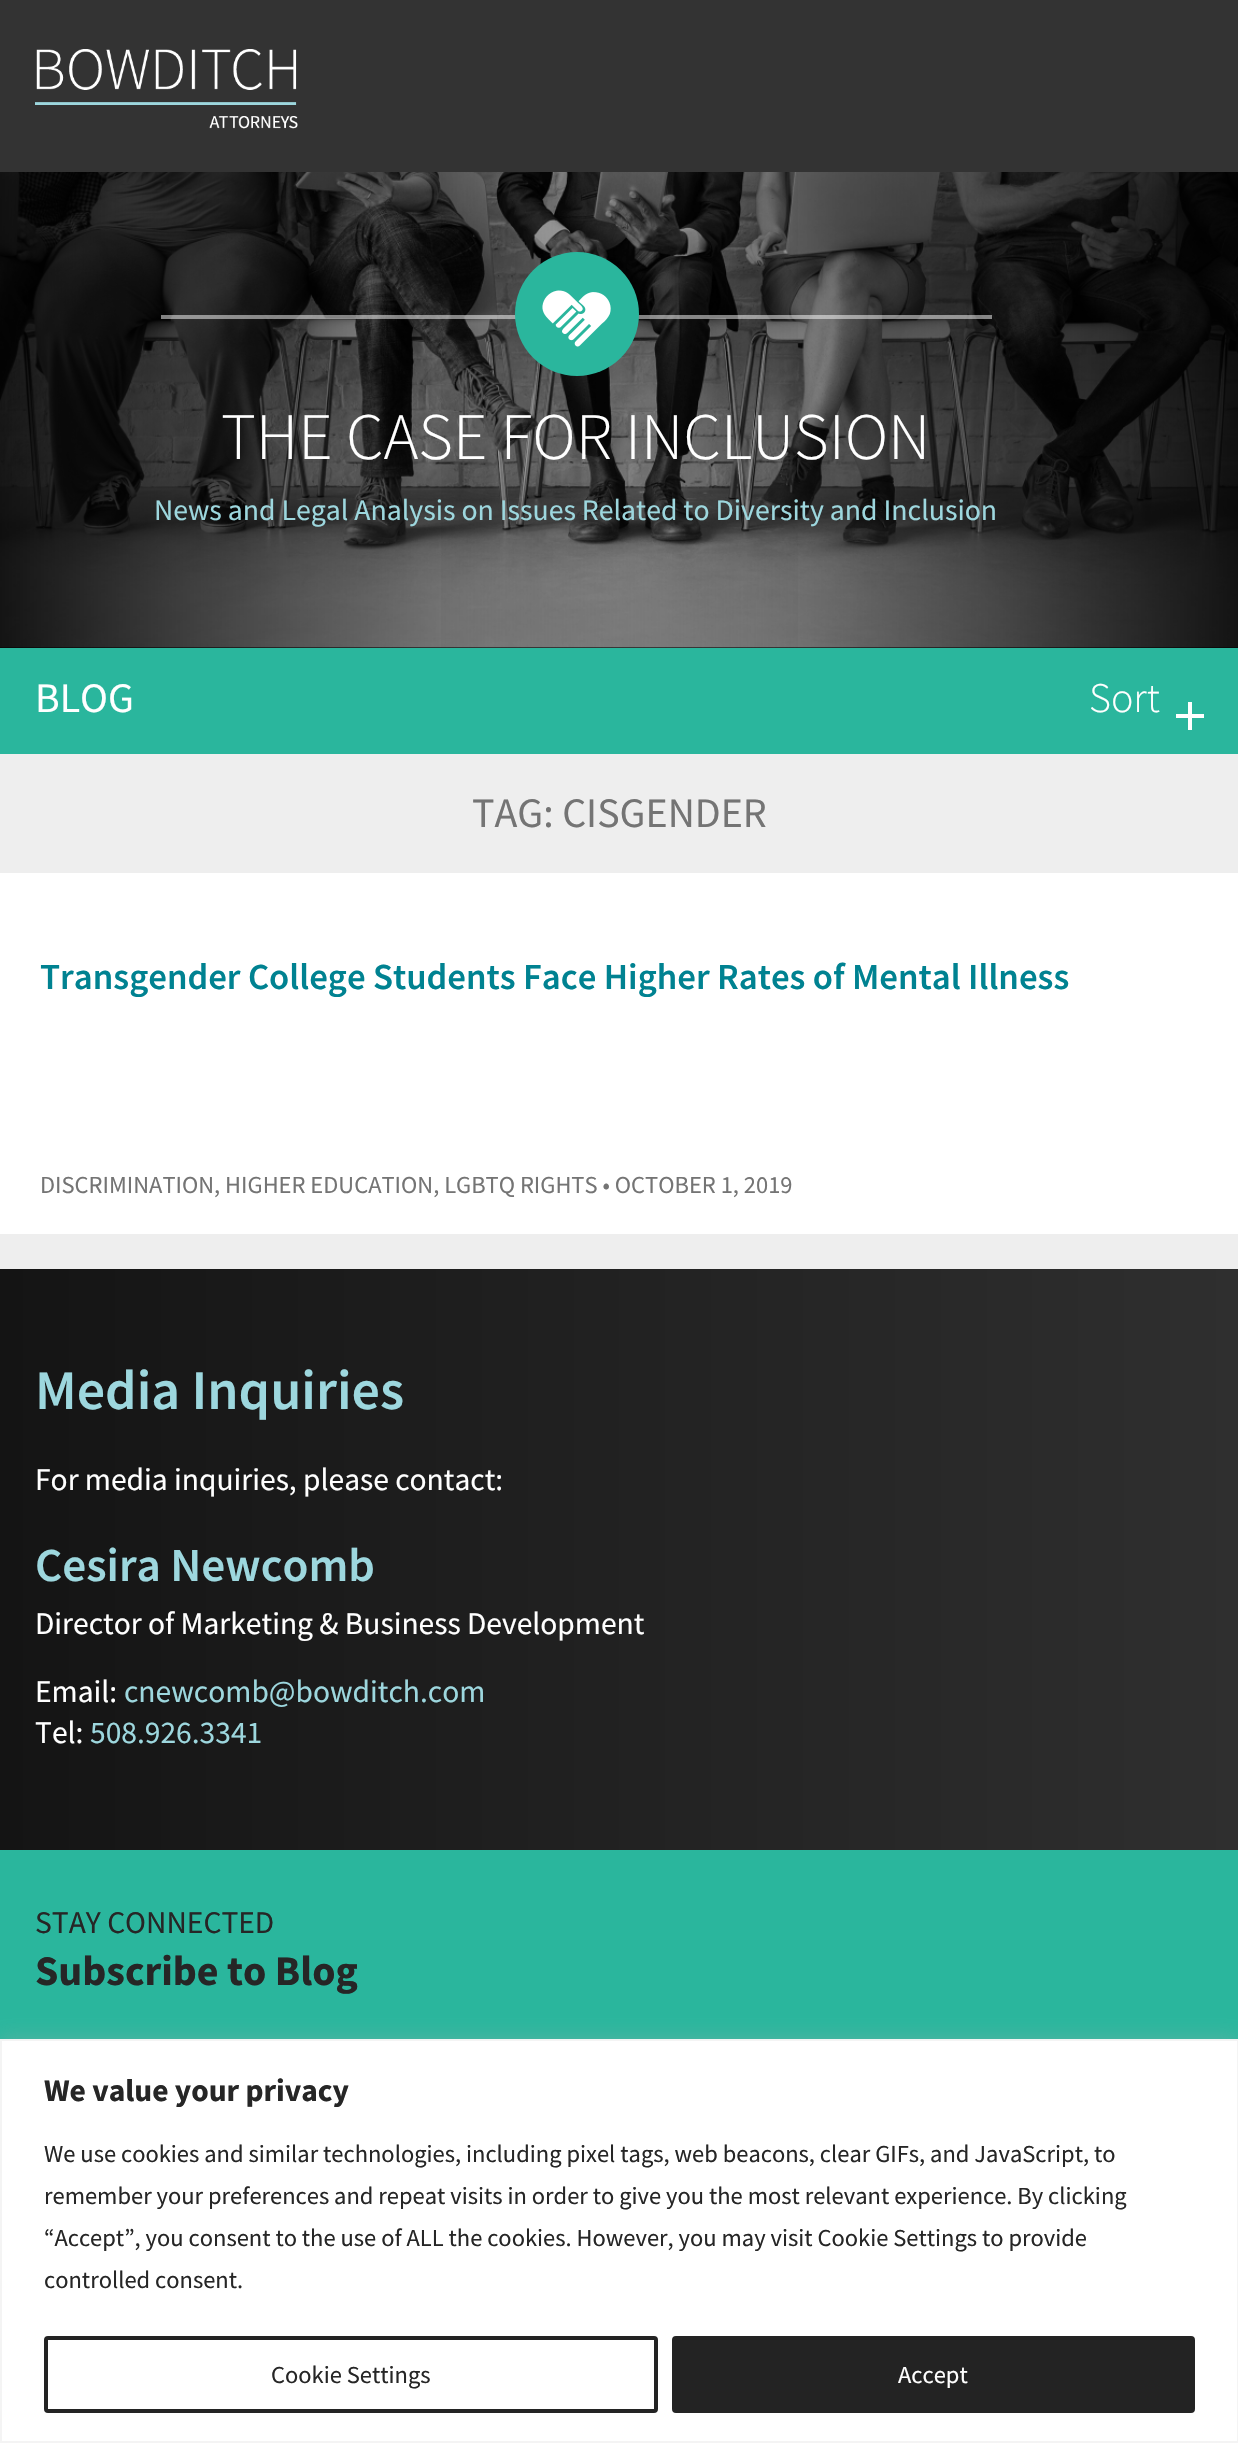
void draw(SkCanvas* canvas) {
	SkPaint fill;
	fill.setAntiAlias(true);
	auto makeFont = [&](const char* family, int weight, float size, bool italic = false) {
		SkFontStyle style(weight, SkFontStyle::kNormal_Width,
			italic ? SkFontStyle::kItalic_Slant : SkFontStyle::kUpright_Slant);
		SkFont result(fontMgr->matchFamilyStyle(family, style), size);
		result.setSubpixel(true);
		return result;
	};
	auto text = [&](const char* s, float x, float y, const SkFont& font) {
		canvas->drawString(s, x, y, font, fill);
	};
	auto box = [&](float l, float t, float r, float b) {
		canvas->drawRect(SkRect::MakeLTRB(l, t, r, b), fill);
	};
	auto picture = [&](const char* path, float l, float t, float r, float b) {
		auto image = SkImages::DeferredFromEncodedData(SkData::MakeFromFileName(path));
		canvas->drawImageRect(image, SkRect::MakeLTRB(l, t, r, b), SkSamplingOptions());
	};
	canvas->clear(0xFF2AB69D);
	fill.setColor(0xFF333333);
	box(0, 0, 1238, 172);
	picture("image0.png", 35, 49, 298, 129);
	box(0, 647, 1238, 648);
	picture("image1.png", 0, 172, 1238, 648);
	{
		const SkColor colors[] = {0xE6000000, 0x00000000};
		const float stops[] = {0, 0.66f};
		const SkPoint ends[] = {{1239, 406}, {0, 406}};
		fill.setShader(SkGradientShader::MakeLinear(ends, colors, stops, 2, SkTileMode::kClamp));
		fill.setAlpha(255);
	}
	box(441, 172, 1238, 648);
	{
		const SkColor colors[] = {0xE6000000, 0x00000000};
		const float stops[] = {0, 0.66f};
		const SkPoint ends[] = {{0, 406}, {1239, 406}};
		fill.setShader(SkGradientShader::MakeLinear(ends, colors, stops, 2, SkTileMode::kClamp));
		fill.setAlpha(255);
	}
	box(0, 172, 798, 648);
	fill.setShader(nullptr);
	fill.setColor(0x80FFFFFF);
	box(161, 315, 992, 319);
	fill.setColor(0xFF2AB69D);
	canvas->drawCircle(577, 314, 62, fill);
	picture("image2.png", 542, 290, 611, 347);
	fill.setColor(0xFFFFFFFF);
	box(1176, 714, 1204, 718);
	box(1188, 702, 1192, 730);
	fill.setColor(0xFFEEEEEE);
	box(0, 754, 1238, 1269);
	fill.setColor(0xFFFFFFFF);
	box(0, 873, 1238, 1234);
	{
		const SkColor colors[] = {0xFF141414, 0xFF2F2F2F};
		const float stops[] = {0, 1};
		const SkPoint ends[] = {{0, 1559}, {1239, 1559}};
		fill.setShader(SkGradientShader::MakeLinear(ends, colors, stops, 2, SkTileMode::kClamp));
		fill.setAlpha(255);
	}
	box(0, 1269, 1238, 1850);
	fill.setShader(nullptr);
	fill.setColor(0x4DACABAB);
	fill.setMaskFilter(SkMaskFilter::MakeBlur(kNormal_SkBlurStyle, 9));
	canvas->drawRect(SkRect::MakeLTRB(0, 2037, 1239, 2441), fill);
	fill.setMaskFilter(nullptr);
	fill.setColor(0xFFFFFFFF);
	canvas->drawRect(SkRect::MakeLTRB(1, 2040, 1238, 2442), fill);
	fill.setStyle(SkPaint::kStroke_Style);
	fill.setStrokeWidth(2);
	fill.setColor(0xFFF4F4F4);
	canvas->drawRect(SkRect::MakeLTRB(1, 2040, 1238, 2442), fill);
	fill.setStrokeWidth(4);
	fill.setColor(0xFF232323);
	canvas->drawRoundRect(SkRect::MakeLTRB(46, 2338, 656, 2411), 2, 2, fill);
	fill.setStyle(SkPaint::kFill_Style);
	canvas->drawRoundRect(SkRect::MakeLTRB(674, 2338, 1193, 2411), 2, 2, fill);
	fill.setStyle(SkPaint::kStroke_Style);
	canvas->drawRoundRect(SkRect::MakeLTRB(674, 2338, 1193, 2411), 2, 2, fill);
	auto font1 = makeFont("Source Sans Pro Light", 300, 66.5f);
	fill.setStyle(SkPaint::kFill_Style);
	fill.setColor(0xFFFFFFFF);
	text("THE CASE FOR INCLUSION", 221, 459, font1);
	auto font2 = makeFont("Source Sans Pro", 400, 29.75f);
	fill.setColor(0xFF9DD7DE);
	text("News and Legal Analysis on Issues Related to Diversity and Inclusion", 154, 520, font2);
	auto font3 = makeFont("Source Sans Pro", 400, 42);
	fill.setColor(0xFFFFFFFF);
	text("BLOG", 35, 712, font3);
	auto font4 = makeFont("Source Sans Pro Light", 300, 42);
	text("Sort", 1089, 712, font4);
	fill.setColor(0xFF747474);
	text("TAG: CISGENDER", 472, 827, font3);
	auto font5 = makeFont("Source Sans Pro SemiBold", 600, 36.75f);
	fill.setColor(0xFF008291);
	text("Transgender College Students Face Higher Rates of Mental Illness", 40, 989, font5);
	auto font6 = makeFont("Source Sans Pro", 400, 24.5f);
	fill.setColor(0xFF747474);
	text("DISCRIMINATION, HIGHER EDUCATION, LGBTQ RIGHTS • OCTOBER 1, 2019", 40, 1193, font6);
	auto font7 = makeFont("Source Sans Pro SemiBold", 600, 56);
	fill.setColor(0xFF9DD7DE);
	text("Media Inquiries", 35, 1409, font7);
	auto font8 = makeFont("Source Sans Pro", 400, 31.5f);
	fill.setColor(0xFFFFFFFF);
	text("For media inquiries, please contact:", 35, 1490, font8);
	auto font9 = makeFont("Source Sans Pro SemiBold", 600, 47.25f);
	fill.setColor(0xFF9DD7DE);
	text("Cesira Newcomb", 35, 1581, font9);
	fill.setColor(0xFFFFFFFF);
	text("Director of Marketing & Business Development", 35, 1634, font8);
	text("Email:", 35, 1702, font8);
	fill.setColor(0xFF9DD7DE);
	text("cnewcomb@bowditch.com", 124, 1702, font8);
	fill.setColor(0xFFFFFFFF);
	text("Tel:", 35, 1743, font8);
	fill.setColor(0xFF9DD7DE);
	text("508.926.3341", 90, 1743, font8);
	fill.setColor(0xFF262626);
	text("STAY CONNECTED", 35, 1933, font8);
	auto font10 = makeFont("Source Sans Pro", 700, 42);
	text("Subscribe to Blog", 35, 1985, font10);
	auto font11 = makeFont("Source Sans Pro", 700, 31.5f);
	text("We value your privacy", 44, 2101, font11);
	text("We use cookies and similar technologies, including pixel tags, web beacons, clear GIFs, and JavaScript, to", 44, 2162, font6);
	text("remember your preferences and repeat visits in order to give you the most relevant experience. By clicking", 44, 2204, font6);
	text("“Accept”, you consent to the use of ALL the cookies. However, you may visit Cookie Settings to provide", 44, 2246, font6);
	text("controlled consent.", 44, 2288, font6);
	text("Cookie Settings", 271, 2383, font6);
	fill.setColor(0xFFFFFFFF);
	text("Accept", 898, 2383, font6);
}
